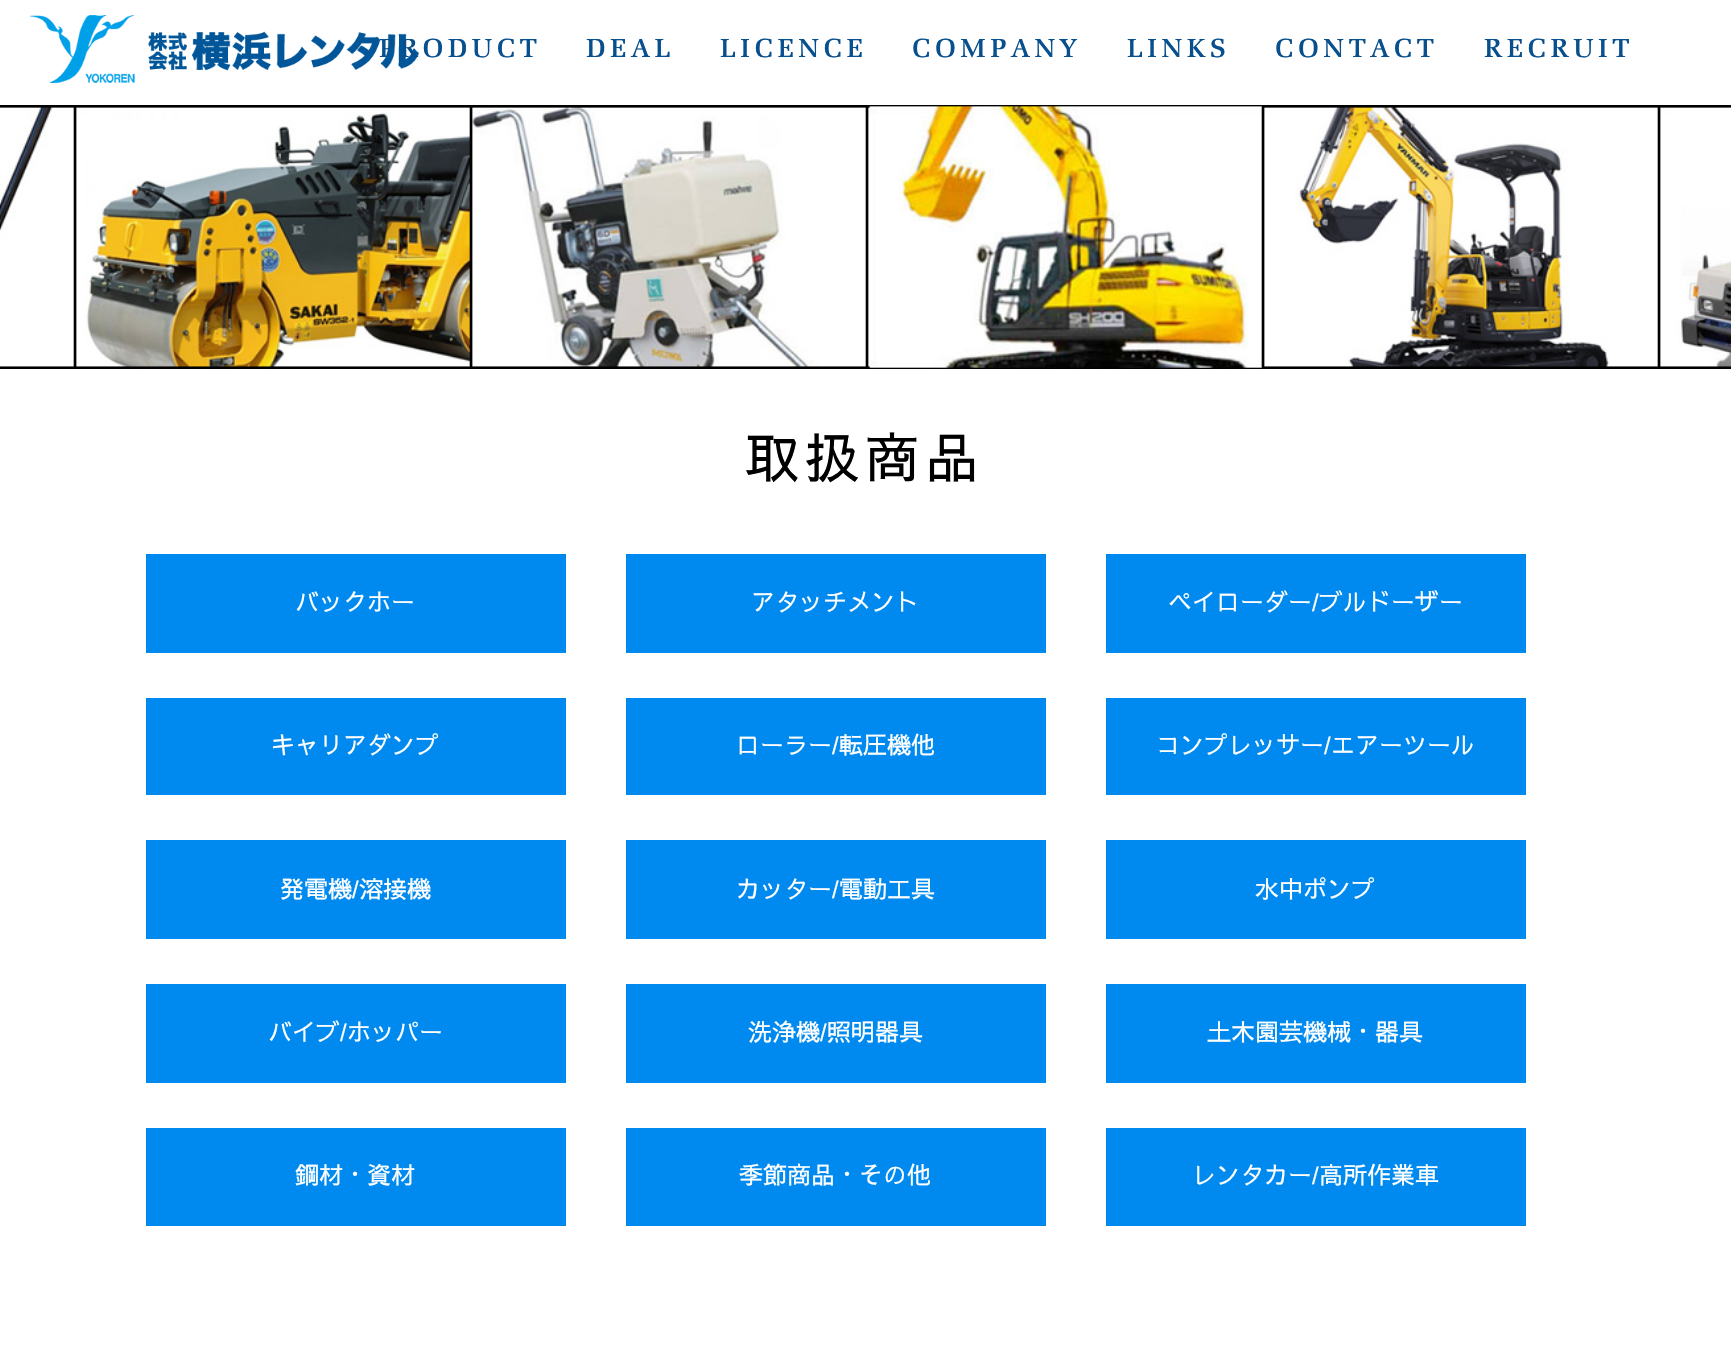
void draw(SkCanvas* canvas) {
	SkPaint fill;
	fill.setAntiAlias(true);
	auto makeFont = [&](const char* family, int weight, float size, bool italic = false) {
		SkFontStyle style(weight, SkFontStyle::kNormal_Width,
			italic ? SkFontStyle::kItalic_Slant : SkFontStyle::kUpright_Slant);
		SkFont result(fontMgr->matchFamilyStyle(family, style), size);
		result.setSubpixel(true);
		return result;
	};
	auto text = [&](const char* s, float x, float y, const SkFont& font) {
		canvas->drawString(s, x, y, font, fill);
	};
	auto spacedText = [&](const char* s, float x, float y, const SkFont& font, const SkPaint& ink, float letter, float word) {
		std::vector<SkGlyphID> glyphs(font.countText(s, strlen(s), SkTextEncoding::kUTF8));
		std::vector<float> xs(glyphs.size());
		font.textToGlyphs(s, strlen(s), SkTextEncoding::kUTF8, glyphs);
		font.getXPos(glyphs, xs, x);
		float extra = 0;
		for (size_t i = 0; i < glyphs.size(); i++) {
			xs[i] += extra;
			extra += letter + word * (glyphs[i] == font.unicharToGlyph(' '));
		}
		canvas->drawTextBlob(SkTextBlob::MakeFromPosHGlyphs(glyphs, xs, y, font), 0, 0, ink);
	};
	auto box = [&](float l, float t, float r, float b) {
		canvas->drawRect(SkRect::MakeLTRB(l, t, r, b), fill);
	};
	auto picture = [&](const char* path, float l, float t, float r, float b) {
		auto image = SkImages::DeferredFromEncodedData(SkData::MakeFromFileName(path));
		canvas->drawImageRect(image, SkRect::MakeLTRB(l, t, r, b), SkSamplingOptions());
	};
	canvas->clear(0xFFFFFFFF);
	picture("image0.png", 30, 15, 420, 83);
	picture("image1.png", 0, 105, 75, 369);
	picture("image2.png", 75, 105, 471, 369);
	picture("image3.png", 471, 105, 867, 369);
	picture("image4.png", 867, 105, 1263, 369);
	picture("image5.png", 1263, 105, 1659, 369);
	picture("image6.png", 1659, 105, 1731, 369);
	fill.setColor(0xFF008AEF);
	box(146, 554, 566, 653);
	box(626, 554, 1046, 653);
	box(1106, 554, 1526, 653);
	box(146, 698, 566, 795);
	box(626, 698, 1046, 795);
	box(1106, 698, 1526, 795);
	box(146, 840, 566, 939);
	box(626, 840, 1046, 939);
	box(1106, 840, 1526, 939);
	box(146, 984, 566, 1083);
	box(626, 984, 1046, 1083);
	box(1106, 984, 1526, 1083);
	box(146, 1128, 566, 1226);
	box(626, 1128, 1046, 1226);
	box(1106, 1128, 1526, 1226);
	auto font1 = makeFont("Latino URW", 500, 27);
	fill.setColor(0xFF084F8D);
	spacedText("PRODUCT", 379, 57, font1, fill, 4.5f, 0);
	spacedText("DEAL", 586, 57, font1, fill, 4.5f, 0);
	spacedText("LICENCE", 720, 57, font1, fill, 4.5f, 0);
	spacedText("COMPANY", 912, 57, font1, fill, 4.5f, 0);
	spacedText("LINKS", 1127, 57, font1, fill, 4.5f, 0);
	spacedText("CONTACT", 1275, 57, font1, fill, 4.5f, 0);
	spacedText("RECRUIT", 1484, 57, font1, fill, 4.5f, 0);
	auto font2 = makeFont("Sawarabi Gothic", 400, 54);
	fill.setColor(0xFF000000);
	spacedText("取扱商品", 745, 478, font2, fill, 6, 0);
	auto font3 = makeFont("Sawarabi Gothic", 400, 24);
	fill.setColor(0xFFFFFFFF);
	text("バックホー", 295, 611, font3);
	text("アタッチメント", 751, 611, font3);
	text("ペイローダー", 1168, 611, font3);
	auto font4 = makeFont("Liberation Sans", 400, 24);
	text("/", 1312, 611, font4);
	text("ブルドーザー", 1319, 611, font3);
	text("キャリアダンプ", 271, 754, font3);
	text("ローラー", 736, 754, font3);
	text("/", 832, 754, font4);
	text("転圧機他", 839, 754, font3);
	text("コンプレッサー", 1156, 754, font3);
	text("/", 1324, 754, font4);
	text("エアーツール", 1331, 754, font3);
	text("発電機", 280, 898, font3);
	text("/", 352, 898, font4);
	text("溶接機", 359, 898, font3);
	text("カッター", 736, 898, font3);
	text("/", 832, 898, font4);
	text("電動工具", 839, 898, font3);
	text("水中ポンプ", 1255, 898, font3);
	text("バイブ", 268, 1041, font3);
	text("/", 340, 1041, font4);
	text("ホッパー", 347, 1041, font3);
	text("洗浄機", 748, 1041, font3);
	text("/", 820, 1041, font4);
	text("照明器具", 827, 1041, font3);
	text("土木園芸機械・器具", 1207, 1041, font3);
	text("鋼材・資材", 295, 1184, font3);
	text("季節商品・その他", 739, 1184, font3);
	text("レンタカー", 1192, 1184, font3);
	text("/", 1312, 1184, font4);
	text("高所作業車", 1319, 1184, font3);
}
